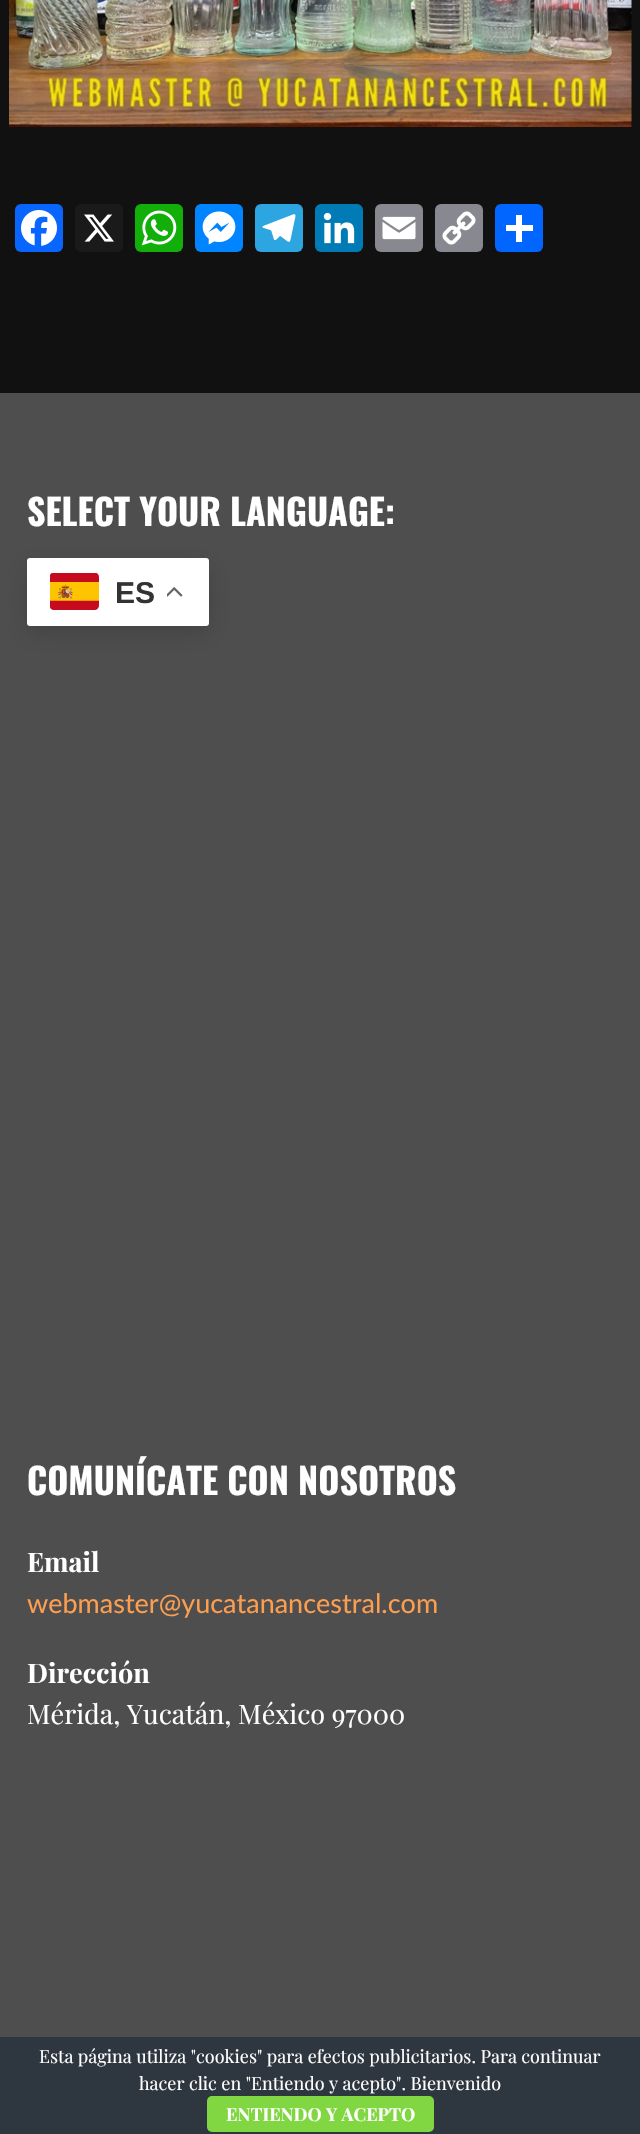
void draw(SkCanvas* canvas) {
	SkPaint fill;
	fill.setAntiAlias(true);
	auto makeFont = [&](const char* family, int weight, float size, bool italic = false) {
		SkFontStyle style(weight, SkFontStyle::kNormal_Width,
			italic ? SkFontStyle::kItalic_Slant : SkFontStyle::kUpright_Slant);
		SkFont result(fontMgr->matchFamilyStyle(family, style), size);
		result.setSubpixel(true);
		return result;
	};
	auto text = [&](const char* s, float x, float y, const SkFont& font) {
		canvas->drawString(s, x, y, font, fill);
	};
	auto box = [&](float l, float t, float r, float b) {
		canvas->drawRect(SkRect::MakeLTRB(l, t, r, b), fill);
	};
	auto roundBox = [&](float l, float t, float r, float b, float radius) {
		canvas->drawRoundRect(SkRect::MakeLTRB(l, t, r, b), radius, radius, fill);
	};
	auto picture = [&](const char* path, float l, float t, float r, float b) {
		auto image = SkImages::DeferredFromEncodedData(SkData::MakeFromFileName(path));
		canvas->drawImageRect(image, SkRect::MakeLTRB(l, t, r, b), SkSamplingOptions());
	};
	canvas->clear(0xFF111111);
	picture("image0.png", 9, 0, 632, 127);
	fill.setColor(0xFF0866FF);
	roundBox(15, 204, 63, 252, 6);
	picture("image1.png", 21, 210, 57, 246);
	fill.setColor(0xFF1A1A1A);
	roundBox(75, 204, 123, 252, 6);
	picture("image2.png", 84, 214, 114, 242);
	fill.setColor(0xFF12AF0A);
	roundBox(135, 204, 183, 252, 6);
	picture("image3.png", 141, 210, 177, 246);
	fill.setColor(0xFF0084FF);
	roundBox(195, 204, 243, 252, 6);
	picture("image4.png", 202, 211, 236, 245);
	fill.setColor(0xFF2CA5E0);
	roundBox(255, 204, 303, 252, 6);
	picture("image5.png", 262, 214, 296, 242);
	fill.setColor(0xFF007BB5);
	roundBox(315, 204, 363, 252, 6);
	picture("image6.png", 323, 212, 355, 244);
	fill.setColor(0xFF888990);
	roundBox(375, 204, 423, 252, 6);
	picture("image7.png", 382, 216, 416, 240);
	roundBox(435, 204, 483, 252, 6);
	picture("image8.png", 442, 211, 476, 245);
	fill.setColor(0xFF0166FF);
	roundBox(495, 204, 543, 252, 6);
	fill.setColor(0xFFFFFFFF);
	box(516, 215, 522, 242);
	box(506, 225, 533, 231);
	fill.setColor(0xFF4E4E4E);
	box(0, 393, 640, 2037);
	fill.setColor(0x26000000);
	fill.setMaskFilter(SkMaskFilter::MakeBlur(kNormal_SkBlurStyle, 11));
	canvas->drawRoundRect(SkRect::MakeLTRB(27, 566, 209, 633), 3, 3, fill);
	fill.setMaskFilter(nullptr);
	fill.setColor(0xFFFFFFFF);
	roundBox(27, 558, 209, 626, 3);
	picture("image9.png", 50, 573, 99, 610);
	picture("image10.png", 167, 587, 183, 597);
	fill.setColor(0xFF2E363F);
	box(0, 2037, 640, 2134);
	fill.setColor(0xFF81D742);
	roundBox(207, 2096, 434, 2132, 5);
	auto font1 = makeFont("Oswald", 700, 36);
	fill.setColor(0xFFFFFFFF);
	text("SELECT YOUR LANGUAGE:", 27, 526, font1);
	auto font2 = makeFont("Liberation Sans", 700, 30);
	fill.setColor(0xFF333333);
	text("ES", 115, 603, font2);
	fill.setColor(0xFFFFFFFF);
	text("COMUNÍCATE CON NOSOTROS", 27, 1495, font1);
	auto font3 = makeFont("Playfair Display", 700, 27);
	text("Email", 27, 1572, font3);
	auto font4 = makeFont("Lato", 400, 27);
	fill.setColor(0xFFFC9E4F);
	text("webmaster@yucatanancestral.com", 27, 1613, font4);
	fill.setColor(0xFFFFFFFF);
	text("Dirección", 27, 1683, font3);
	auto font5 = makeFont("Playfair Display", 400, 27);
	text("Mérida, Yucatán, México 97000", 27, 1724, font5);
	auto font6 = makeFont("Playfair Display", 400, 18);
	text("Esta página utiliza \"cookies\" para efectos publicitarios. Para continuar", 39, 2063, font6);
	text("hacer clic en \"Entiendo y acepto\". Bienvenido", 139, 2090, font6);
	auto font7 = makeFont("Playfair Display", 700, 18);
	text("ENTIENDO Y ACEPTO", 226, 2121, font7);
}
